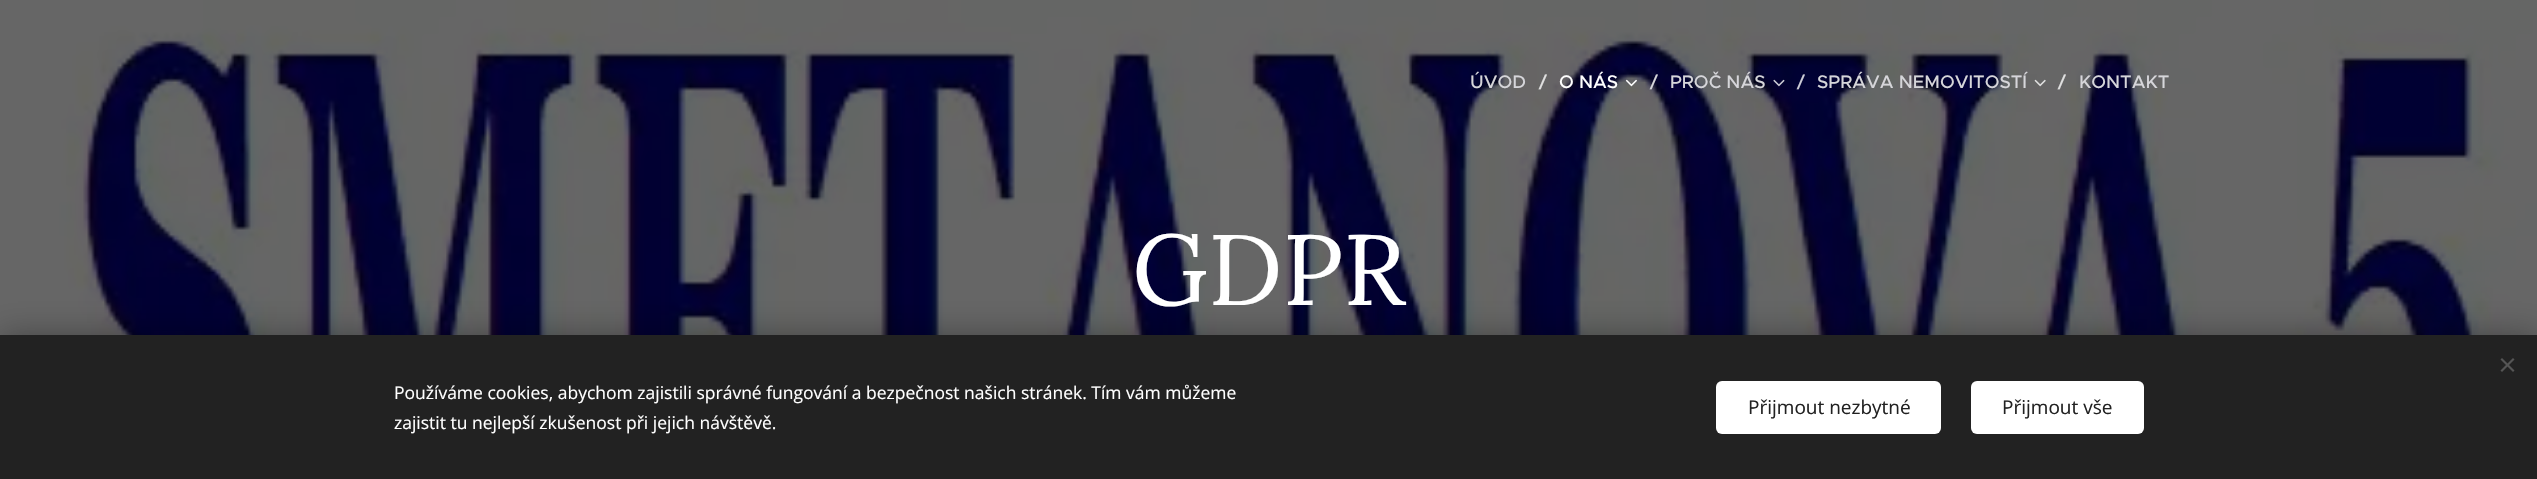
void draw(SkCanvas* canvas) {
	SkPaint fill;
	fill.setAntiAlias(true);
	auto makeFont = [&](const char* family, int weight, float size, bool italic = false) {
		SkFontStyle style(weight, SkFontStyle::kNormal_Width,
			italic ? SkFontStyle::kItalic_Slant : SkFontStyle::kUpright_Slant);
		SkFont result(fontMgr->matchFamilyStyle(family, style), size);
		result.setSubpixel(true);
		return result;
	};
	auto text = [&](const char* s, float x, float y, const SkFont& font) {
		canvas->drawString(s, x, y, font, fill);
	};
	auto box = [&](float l, float t, float r, float b) {
		canvas->drawRect(SkRect::MakeLTRB(l, t, r, b), fill);
	};
	auto roundBox = [&](float l, float t, float r, float b, float radius) {
		canvas->drawRoundRect(SkRect::MakeLTRB(l, t, r, b), radius, radius, fill);
	};
	auto picture = [&](const char* path, float l, float t, float r, float b) {
		auto image = SkImages::DeferredFromEncodedData(SkData::MakeFromFileName(path));
		canvas->drawImageRect(image, SkRect::MakeLTRB(l, t, r, b), SkSamplingOptions());
	};
	canvas->clear(0xFFFFFFFF);
	picture("image3.png", 0, 0, 2537, 335);
	picture("image0.png", 1625, 79, 1637, 87);
	picture("image1.png", 1773, 79, 1785, 87);
	picture("image2.png", 2034, 79, 2046, 87);
	fill.setColor(0x54000000);
	fill.setMaskFilter(SkMaskFilter::MakeBlur(kNormal_SkBlurStyle, 15.5f));
	canvas->drawRect(SkRect::MakeLTRB(0, 335, 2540, 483), fill);
	fill.setMaskFilter(nullptr);
	fill.setColor(0xFF222222);
	box(0, 335, 2537, 479);
	fill.setColor(0xFF555555);
	canvas->drawPath(SkPathBuilder().moveTo(2500.5f, 370.5f).lineTo(2513, 358).lineTo(2514.5f, 359.5f).lineTo(2502, 372).close().detach(), fill);
	canvas->drawPath(SkPathBuilder().moveTo(2502, 358).lineTo(2514.5f, 370.5f).lineTo(2513, 372).lineTo(2500.5f, 359.5f).close().detach(), fill);
	fill.setColor(0xFFFFFFFF);
	roundBox(1716, 381, 1941, 434, 6);
	roundBox(1971, 381, 2144, 434, 6);
	auto font1 = makeFont("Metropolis", 500, 18.25f);
	fill.setColor(0xFFD6D6DA);
	text("ÚVOD", 1470, 88, font1);
	fill.setColor(0xFFE0E0E0);
	text("/", 1539, 88, font1);
	fill.setColor(0xFFFFFFFF);
	text("O NÁS", 1559, 88, font1);
	fill.setColor(0xFFD6D6DA);
	text("/", 1650, 88, font1);
	text("PROČ NÁS", 1670, 88, font1);
	fill.setColor(0xFFCCCCD6);
	text("/", 1797, 88, font1);
	fill.setColor(0xFFD6D6DA);
	text("SPRÁVA NEMOVITOSTÍ", 1817, 88, font1);
	fill.setColor(0xFFE0E0E0);
	text("/", 2058, 88, font1);
	fill.setColor(0xFFD6D6DA);
	text("KONTAKT", 2079, 88, font1);
	auto font2 = makeFont("Lora", 400, 100);
	fill.setColor(0xFFFFFFFF);
	text("GDPR", 1132, 305, font2);
	auto font3 = makeFont("Open Sans", 400, 17.5f);
	text("Používáme cookies, abychom zajistili správné fungování a bezpečnost našich stránek. Tím vám můžeme", 394, 399, font3);
	text("zajistit tu nejlepší zkušenost při jejich návštěvě.", 394, 429, font3);
	auto font4 = makeFont("Open Sans", 400, 19);
	fill.setColor(0xFF222222);
	text("Přijmout nezbytné", 1748, 414, font4);
	text("Přijmout vše", 2002, 414, font4);
}
